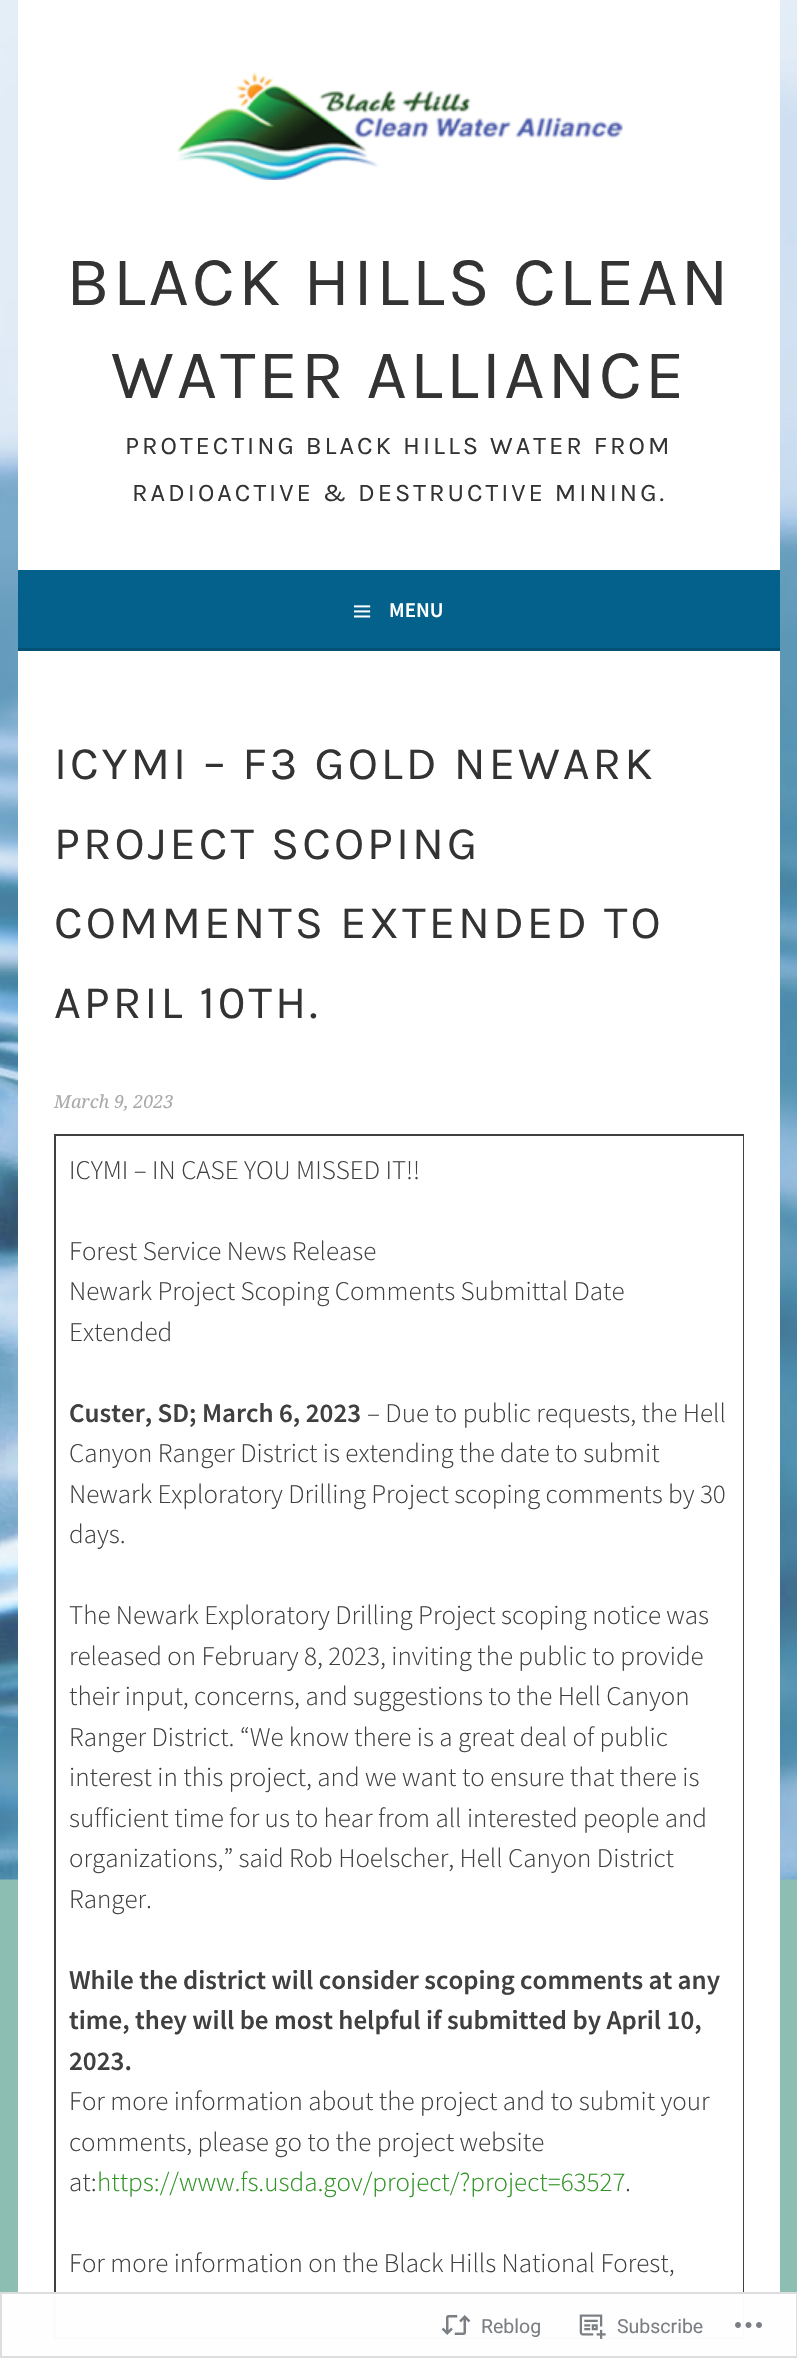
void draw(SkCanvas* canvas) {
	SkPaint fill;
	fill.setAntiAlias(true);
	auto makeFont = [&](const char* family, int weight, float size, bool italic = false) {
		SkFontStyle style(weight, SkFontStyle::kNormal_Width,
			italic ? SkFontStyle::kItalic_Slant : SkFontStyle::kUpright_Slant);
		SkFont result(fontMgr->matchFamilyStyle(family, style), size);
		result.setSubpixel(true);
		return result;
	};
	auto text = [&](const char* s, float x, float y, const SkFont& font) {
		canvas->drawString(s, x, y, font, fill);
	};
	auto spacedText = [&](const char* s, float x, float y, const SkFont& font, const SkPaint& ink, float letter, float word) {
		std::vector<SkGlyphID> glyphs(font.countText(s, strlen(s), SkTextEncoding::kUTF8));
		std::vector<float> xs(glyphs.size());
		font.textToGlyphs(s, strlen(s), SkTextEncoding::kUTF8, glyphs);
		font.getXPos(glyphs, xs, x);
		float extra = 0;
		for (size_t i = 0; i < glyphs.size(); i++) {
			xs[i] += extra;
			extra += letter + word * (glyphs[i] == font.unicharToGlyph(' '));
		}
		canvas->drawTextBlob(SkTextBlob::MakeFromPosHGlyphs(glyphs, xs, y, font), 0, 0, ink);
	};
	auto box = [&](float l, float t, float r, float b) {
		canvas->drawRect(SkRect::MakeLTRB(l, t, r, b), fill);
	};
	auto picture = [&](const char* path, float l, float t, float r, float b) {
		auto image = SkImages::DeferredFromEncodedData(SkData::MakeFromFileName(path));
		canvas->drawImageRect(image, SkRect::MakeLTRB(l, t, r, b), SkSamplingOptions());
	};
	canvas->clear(0xFF8CBEB2);
	fill.setColor(0xFFFDFEFD);
	box(0, 2292, 797, 2358);
	picture("image0.png", 0, 0, 797, 1880);
	fill.setColor(0xFFFFFFFF);
	box(18, 0, 780, 570);
	picture("image1.png", 177, 72, 623, 180);
	fill.setColor(0xFF03618B);
	box(18, 570, 780, 648);
	fill.setColor(0xFF035276);
	box(18, 648, 780, 651);
	picture("image2.png", 354, 605, 371, 618);
	fill.setColor(0xFFFFFFFF);
	box(18, 651, 780, 2292);
	fill.setColor(0xFF404040);
	box(54, 1134, 744, 1136);
	box(743, 1134, 744, 2292);
	fill.setColor(0xFFFBFBFB);
	box(743, 2292, 744, 2339);
	box(54, 2337, 744, 2339);
	fill.setColor(0xFF404040);
	box(54, 1134, 56, 2292);
	fill.setColor(0xFFFBFBFB);
	box(54, 2292, 56, 2339);
	fill.setStyle(SkPaint::kStroke_Style);
	fill.setStrokeWidth(2);
	fill.setColor(0xFADCDCDE);
	canvas->drawRect(SkRect::MakeLTRB(1, 2293, 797, 2357), fill);
	picture("image3.png", 441, 2315, 471, 2335);
	picture("image4.png", 579, 2314, 606, 2339);
	picture("image5.png", 735, 2322, 762, 2328);
	auto font1 = makeFont("Karla", 400, 70.25f);
	fill.setStyle(SkPaint::kFill_Style);
	fill.setColor(0xFF333333);
	spacedText("BLACK HILLS CLEAN", 66, 305, font1, fill, 3, 0);
	spacedText("WATER ALLIANCE", 111, 398, font1, fill, 3, 0);
	auto font2 = makeFont("Karla", 400, 25.35f);
	spacedText("PROTECTING BLACK HILLS WATER FROM", 125, 454, font2, fill, 3, 0);
	spacedText("RADIOACTIVE & DESTRUCTIVE MINING.", 132, 501, font2, fill, 3, 0);
	auto font3 = makeFont("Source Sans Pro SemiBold", 600, 21);
	fill.setColor(0xFFFFFFFF);
	text("MENU", 389, 617, font3);
	auto font4 = makeFont("Karla", 400, 46.75f);
	fill.setColor(0xFF333333);
	spacedText("ICYMI – F3 GOLD NEWARK", 54, 779, font4, fill, 3, 0);
	spacedText("PROJECT SCOPING", 54, 859, font4, fill, 3, 0);
	spacedText("COMMENTS EXTENDED TO", 54, 938, font4, fill, 3, 0);
	spacedText("APRIL 10TH.", 54, 1018, font4, fill, 3, 0);
	auto font5 = makeFont("Droid Serif", 400, 18, true);
	fill.setColor(0xFFAAAAAA);
	text("March 9, 2023", 54, 1108, font5);
	auto font6 = makeFont("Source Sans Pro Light", 300, 27);
	fill.setColor(0xFF404040);
	text("ICYMI – IN CASE YOU MISSED IT!!", 69, 1179, font6);
	text("Forest Service News Release", 69, 1260, font6);
	text("Newark Project Scoping Comments Submittal Date", 69, 1300, font6);
	text("Extended", 69, 1341, font6);
	auto font7 = makeFont("Source Sans Pro SemiBold", 600, 27);
	text("Custer, SD; March 6, 2023", 69, 1422, font7);
	text("– Due to public requests, the Hell", 367, 1422, font6);
	text("Canyon Ranger District is extending the date to submit", 69, 1462, font6);
	text("Newark Exploratory Drilling Project scoping comments by 30", 69, 1503, font6);
	text("days.", 69, 1543, font6);
	text("The Newark Exploratory Drilling Project scoping notice was", 69, 1624, font6);
	text("released on February 8, 2023, inviting the public to provide", 69, 1665, font6);
	text("their input, concerns, and suggestions to the Hell Canyon", 69, 1705, font6);
	text("Ranger District. “We know there is a great deal of public", 69, 1746, font6);
	text("interest in this project, and we want to ensure that there is", 69, 1786, font6);
	text("sufficient time for us to hear from all interested people and", 69, 1827, font6);
	text("organizations,” said Rob Hoelscher, Hell Canyon District", 69, 1867, font6);
	text("Ranger.", 69, 1908, font6);
	text("While the district will consider scoping comments at any", 69, 1989, font7);
	text("time, they will be most helpful if submitted by April 10,", 69, 2029, font7);
	text("2023.", 69, 2070, font7);
	text("For more information about the project and to submit your", 69, 2110, font6);
	text("comments, please go to the project website", 69, 2151, font6);
	text("at:", 69, 2191, font6);
	fill.setColor(0xFF2E9324);
	text("https://www.fs.usda.gov/project/?project=63527", 97, 2191, font6);
	fill.setColor(0xFF404040);
	text(".", 625, 2191, font6);
	text("For more information on the Black Hills National Forest,", 69, 2272, font6);
	auto font8 = makeFont("Roboto", 400, 19.5f);
	fill.setColor(0xFF7B7F84);
	text("Reblog", 481, 2333, font8);
	text("Subscribe", 617, 2333, font8);
}
